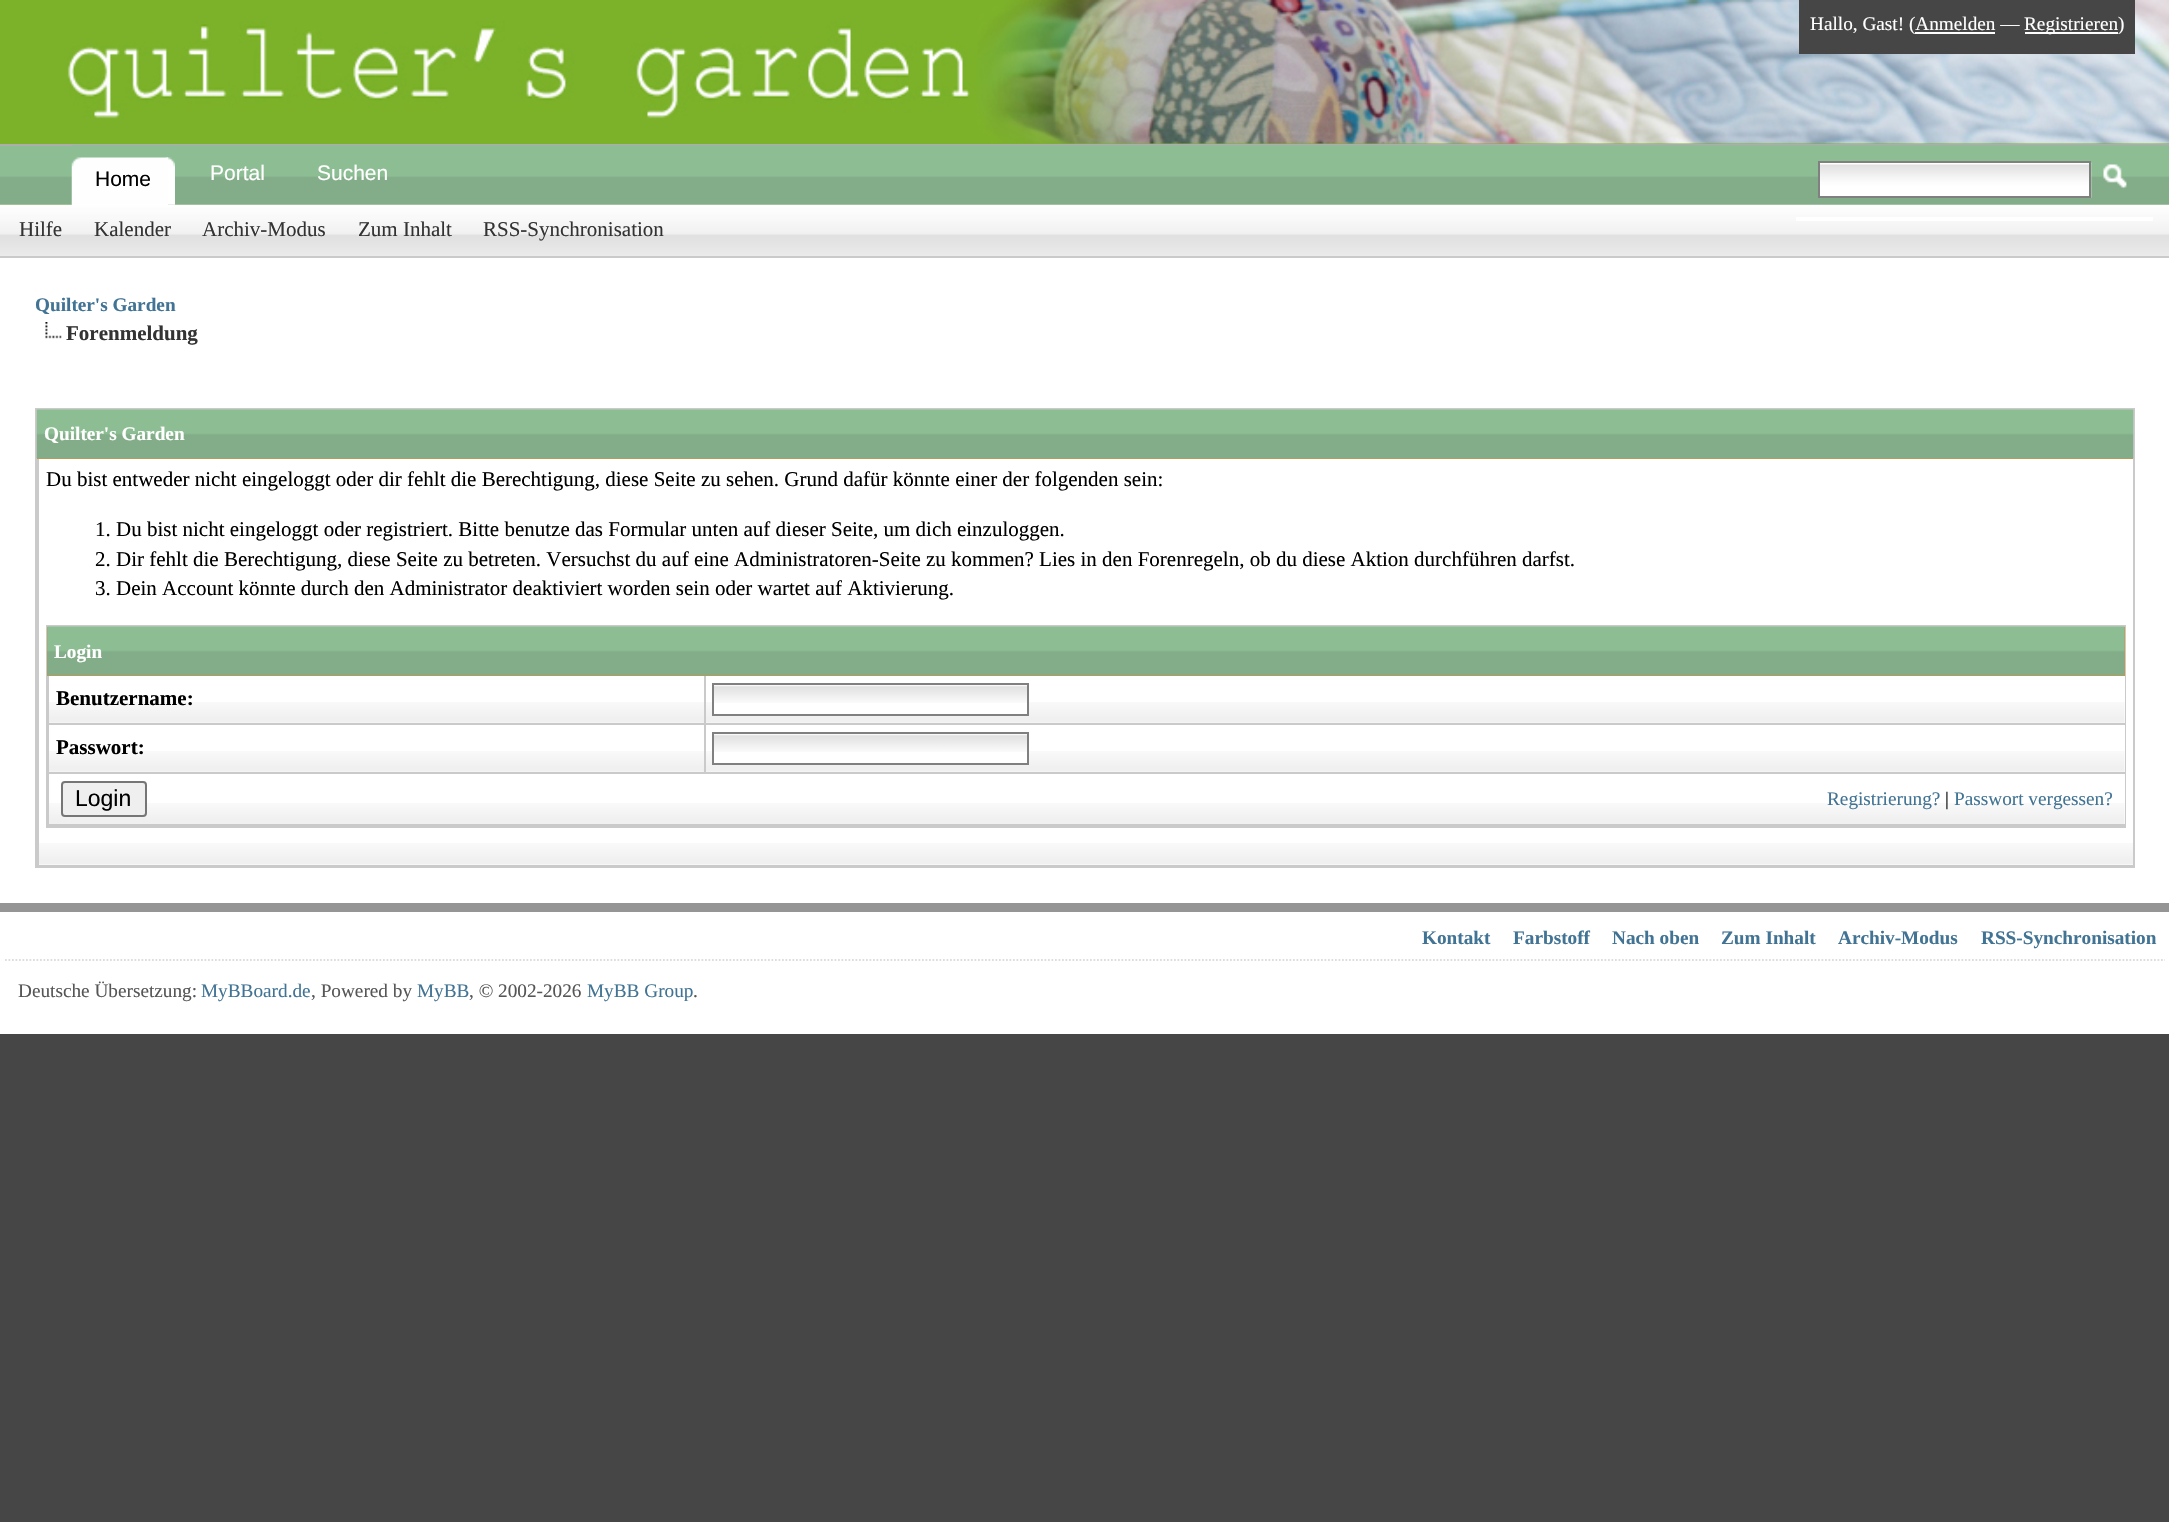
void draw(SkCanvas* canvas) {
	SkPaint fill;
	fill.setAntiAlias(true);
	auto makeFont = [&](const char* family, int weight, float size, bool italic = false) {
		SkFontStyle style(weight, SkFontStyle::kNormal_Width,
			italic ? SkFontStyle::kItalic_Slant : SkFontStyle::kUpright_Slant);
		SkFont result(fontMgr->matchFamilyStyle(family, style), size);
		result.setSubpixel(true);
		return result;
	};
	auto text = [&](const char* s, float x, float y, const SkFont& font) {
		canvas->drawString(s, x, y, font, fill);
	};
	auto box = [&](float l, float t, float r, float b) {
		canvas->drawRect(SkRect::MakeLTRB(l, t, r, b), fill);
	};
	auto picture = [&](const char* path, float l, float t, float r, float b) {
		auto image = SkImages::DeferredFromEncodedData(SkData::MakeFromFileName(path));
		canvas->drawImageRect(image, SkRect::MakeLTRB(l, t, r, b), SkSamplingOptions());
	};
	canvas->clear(0xFF464646);
	fill.setColor(0xFFFFFFFF);
	box(0, 258, 2169, 1034);
	fill.setColor(0xFF7CB229);
	box(0, 0, 2169, 205);
	picture("image0.png", 977, 0, 2169, 144);
	picture("image1.png", 67, 21, 970, 119);
	fill.setColor(0xFF464646);
	box(1799, 0, 2135, 54);
	fill.setColor(0xFFFFFFFF);
	box(1915, 32, 1995, 34);
	box(2025, 32, 2118, 34);
	picture("image2.png", 0, 146, 2169, 205);
	fill.setColor(0xFFADADAD);
	box(0, 144, 2169, 146);
	picture("image3.png", 71, 145, 2169, 205);
	picture("image8.png", 0, 204, 2169, 256);
	picture("image4.png", 166, 157, 175, 205);
	picture("image5.png", 71, 157, 168, 205);
	fill.setColor(0xFFFFFFFF);
	box(72, 204, 168, 205);
	box(1796, 217, 2153, 221);
	picture("image6.png", 1820, 162, 2092, 198);
	fill.setStyle(SkPaint::kStroke_Style);
	fill.setStrokeWidth(2);
	fill.setColor(0xFF808080);
	canvas->drawRect(SkRect::MakeLTRB(1819, 162, 2090, 197), fill);
	picture("image7.png", 2103, 164, 2127, 189);
	fill.setStyle(SkPaint::kFill_Style);
	fill.setColor(0xFFCACACA);
	box(0, 256, 2169, 258);
	picture("image9.png", 45, 322, 62, 339);
	fill.setStyle(SkPaint::kStroke_Style);
	canvas->drawRect(SkRect::MakeLTRB(36, 409, 2134, 867), fill);
	fill.setStyle(SkPaint::kFill_Style);
	fill.setColor(0xFFE68A27);
	box(37, 458, 2133, 459);
	picture("image10.png", 36, 409, 2134, 459);
	picture("image11.png", 39, 843, 2133, 865);
	fill.setColor(0xFFCACACA);
	box(37, 865, 2133, 866);
	box(37, 459, 39, 866);
	fill.setStyle(SkPaint::kStroke_Style);
	canvas->drawRect(SkRect::MakeLTRB(47, 626, 2125, 827), fill);
	fill.setStyle(SkPaint::kFill_Style);
	fill.setColor(0xFFE68A27);
	box(47, 627, 2125, 676);
	picture("image12.png", 47, 626, 2125, 676);
	picture("image13.png", 49, 702, 704, 723);
	fill.setColor(0xFFCACACA);
	box(47, 723, 2125, 725);
	box(48, 676, 49, 725);
	fill.setColor(0xFFFFFFFF);
	box(2124, 676, 2125, 723);
	picture("image14.png", 703, 702, 2125, 723);
	fill.setColor(0xFFCACACA);
	box(704, 676, 706, 725);
	fill.setColor(0xFFFFFFFF);
	box(714, 703, 1027, 714);
	picture("image15.png", 714, 685, 1027, 703);
	fill.setStyle(SkPaint::kStroke_Style);
	fill.setColor(0xFF808080);
	canvas->drawRect(SkRect::MakeLTRB(713, 684, 1028, 715), fill);
	picture("image16.png", 49, 751, 704, 772);
	fill.setStyle(SkPaint::kFill_Style);
	fill.setColor(0xFFCACACA);
	box(47, 772, 2125, 774);
	box(48, 725, 49, 774);
	fill.setColor(0xFFFFFFFF);
	box(2124, 725, 2125, 772);
	picture("image17.png", 703, 751, 2125, 772);
	fill.setColor(0xFFCACACA);
	box(704, 725, 706, 774);
	fill.setColor(0xFFFFFFFF);
	box(714, 752, 1027, 763);
	picture("image18.png", 714, 734, 1027, 752);
	fill.setStyle(SkPaint::kStroke_Style);
	fill.setColor(0xFF808080);
	canvas->drawRect(SkRect::MakeLTRB(713, 733, 1028, 764), fill);
	fill.setStyle(SkPaint::kFill_Style);
	fill.setColor(0xFFFFFFFF);
	box(2124, 774, 2125, 824);
	picture("image19.png", 49, 803, 2125, 824);
	fill.setColor(0xFFCACACA);
	box(47, 824, 2125, 826);
	box(48, 774, 49, 826);
	fill.setColor(0xFFEFEFEF);
	canvas->drawRoundRect(SkRect::MakeLTRB(62, 782, 146, 816), 3, 3, fill);
	fill.setStyle(SkPaint::kStroke_Style);
	fill.setColor(0xFF767676);
	canvas->drawRoundRect(SkRect::MakeLTRB(62, 782, 146, 816), 3, 3, fill);
	fill.setStyle(SkPaint::kFill_Style);
	fill.setColor(0xFF959595);
	box(0, 903, 2169, 912);
	fill.setStyle(SkPaint::kStroke_Style);
	fill.setStrokeWidth(1.8f);
	fill.setColor(0xFFDDDDDD);
	fill.setPathEffect(SkDashPathEffect::Make({{1.75f, 1.75f}}, 0));
	canvas->drawPath(SkPathBuilder().moveTo(5, 960).lineTo(2165, 960).detach(), fill);
	fill.setPathEffect(nullptr);
	auto font1 = makeFont("Liberation Serif", 400, 19.25f);
	fill.setStyle(SkPaint::kFill_Style);
	fill.setColor(0xFFFFFFFF);
	text("Hallo, Gast! (Anmelden —", 1810, 30, font1);
	text("Registrieren)", 2024, 30, font1);
	auto font2 = makeFont("Liberation Sans", 400, 21);
	fill.setColor(0xFF000000);
	text("Home", 95, 186, font2);
	fill.setColor(0xFFFFFFFF);
	text("Portal", 210, 180, font2);
	text("Suchen", 317, 180, font2);
	auto font3 = makeFont("Liberation Serif", 400, 21);
	fill.setColor(0xFF333333);
	text("Hilfe", 19, 236, font3);
	text("Kalender", 94, 236, font3);
	text("Archiv-Modus", 202, 236, font3);
	text("Zum Inhalt", 358, 236, font3);
	text("RSS-Synchronisation", 483, 236, font3);
	auto font4 = makeFont("Liberation Serif", 700, 19.25f);
	fill.setColor(0xFF417394);
	text("Quilter's Garden", 35, 311, font4);
	auto font5 = makeFont("Liberation Serif", 700, 21);
	fill.setColor(0xFF333333);
	text("Forenmeldung", 66, 340, font5);
	fill.setColor(0xFFFFFFFF);
	text("Quilter's Garden", 44, 440, font4);
	fill.setColor(0xFF000000);
	text("Du bist entweder nicht eingeloggt oder dir fehlt die Berechtigung, diese Seite zu sehen. Grund dafür könnte einer der folgenden sein:", 46, 486, font3);
	text("1. Du bist nicht eingeloggt oder registriert. Bitte benutze das Formular unten auf dieser Seite, um dich einzuloggen.", 95, 536, font3);
	text("2. Dir fehlt die Berechtigung, diese Seite zu betreten. Versuchst du auf eine Administratoren-Seite zu kommen? Lies in den Forenregeln, ob du diese Aktion durchführen darfst.", 95, 566, font3);
	text("3. Dein Account könnte durch den Administrator deaktiviert worden sein oder wartet auf Aktivierung.", 95, 595, font3);
	fill.setColor(0xFFFFFFFF);
	text("Login", 54, 658, font4);
	fill.setColor(0xFF000000);
	text("Benutzername:", 56, 705, font5);
	text("Passwort:", 56, 754, font5);
	auto font6 = makeFont("Liberation Sans", 400, 23);
	text("Login", 75, 806, font6);
	fill.setColor(0xFF417394);
	text("Registrierung?", 1827, 805, font1);
	fill.setColor(0xFF000000);
	text("|", 1945, 805, font1);
	fill.setColor(0xFF417394);
	text("Passwort vergessen?", 1954, 805, font1);
	text("Kontakt", 1422, 944, font4);
	text("Farbstoff", 1513, 944, font4);
	text("Nach oben", 1612, 944, font4);
	text("Zum Inhalt", 1721, 944, font4);
	text("Archiv-Modus", 1838, 944, font4);
	text("RSS-Synchronisation", 1981, 944, font4);
	fill.setColor(0xFF565656);
	text("Deutsche Übersetzung:", 18, 997, font1);
	fill.setColor(0xFF417394);
	text("MyBBoard.de", 201, 997, font1);
	fill.setColor(0xFF565656);
	text(", Powered by", 311, 997, font1);
	fill.setColor(0xFF417394);
	text("MyBB", 417, 997, font1);
	fill.setColor(0xFF565656);
	text(", © 2002-2026", 469, 997, font1);
	fill.setColor(0xFF417394);
	text("MyBB Group", 587, 997, font1);
	fill.setColor(0xFF565656);
	text(".", 693, 997, font1);
}
